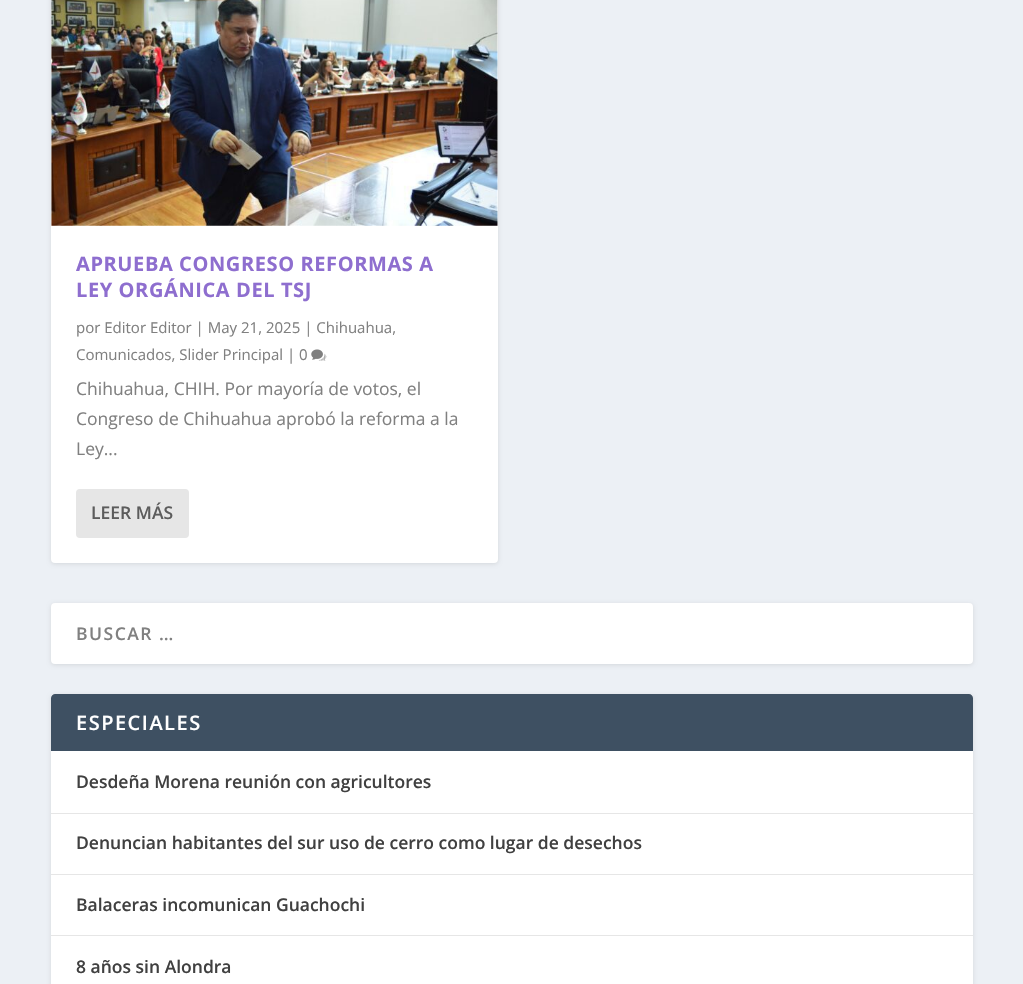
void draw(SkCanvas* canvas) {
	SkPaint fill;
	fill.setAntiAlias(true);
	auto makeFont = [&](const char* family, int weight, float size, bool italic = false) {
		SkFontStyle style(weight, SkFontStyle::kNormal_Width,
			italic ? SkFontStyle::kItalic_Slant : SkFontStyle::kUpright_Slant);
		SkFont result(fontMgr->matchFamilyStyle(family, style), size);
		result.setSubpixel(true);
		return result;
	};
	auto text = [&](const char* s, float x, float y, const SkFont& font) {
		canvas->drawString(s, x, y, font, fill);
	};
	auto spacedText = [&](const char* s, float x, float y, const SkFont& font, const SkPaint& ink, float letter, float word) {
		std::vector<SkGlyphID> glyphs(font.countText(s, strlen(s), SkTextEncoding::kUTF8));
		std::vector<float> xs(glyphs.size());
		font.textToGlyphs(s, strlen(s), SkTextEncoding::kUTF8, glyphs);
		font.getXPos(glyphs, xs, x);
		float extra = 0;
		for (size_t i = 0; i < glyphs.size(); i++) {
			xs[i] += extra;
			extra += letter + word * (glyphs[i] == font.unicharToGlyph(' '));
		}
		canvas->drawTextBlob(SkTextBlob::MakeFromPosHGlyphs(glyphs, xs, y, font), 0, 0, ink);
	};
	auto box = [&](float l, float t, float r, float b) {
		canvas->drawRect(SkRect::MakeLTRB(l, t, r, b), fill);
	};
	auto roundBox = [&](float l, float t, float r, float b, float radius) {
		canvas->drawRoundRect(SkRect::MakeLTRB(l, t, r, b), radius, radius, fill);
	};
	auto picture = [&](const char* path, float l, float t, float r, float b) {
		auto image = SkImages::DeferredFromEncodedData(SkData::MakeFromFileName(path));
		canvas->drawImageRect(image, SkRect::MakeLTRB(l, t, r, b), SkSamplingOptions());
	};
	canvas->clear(0xFFECF0F5);
	fill.setColor(0x1A000000);
	fill.setMaskFilter(SkMaskFilter::MakeBlur(kNormal_SkBlurStyle, 2));
	canvas->drawRoundRect(SkRect::MakeLTRB(51, -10, 498, 564), 4, 4, fill);
	fill.setMaskFilter(nullptr);
	fill.setColor(0xFFFFFFFF);
	roundBox(51, -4, 498, 563, 4);
	picture("image0.png", 51, 0, 498, 226);
	picture("image1.png", 311, 349, 327, 361);
	fill.setColor(0xFFE6E6E6);
	roundBox(76, 489, 189, 538, 4);
	fill.setColor(0x1A000000);
	fill.setMaskFilter(SkMaskFilter::MakeBlur(kNormal_SkBlurStyle, 2));
	canvas->drawRoundRect(SkRect::MakeLTRB(51, 604, 973, 665), 4, 4, fill);
	fill.setMaskFilter(nullptr);
	fill.setColor(0xFFFFFFFF);
	roundBox(51, 603, 973, 664, 4);
	fill.setColor(0x1A000000);
	fill.setMaskFilter(SkMaskFilter::MakeBlur(kNormal_SkBlurStyle, 2));
	canvas->drawRoundRect(SkRect::MakeLTRB(51, 695, 973, 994), 4, 4, fill);
	fill.setMaskFilter(nullptr);
	fill.setColor(0xFFFFFFFF);
	roundBox(51, 694, 973, 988, 4);
	fill.setColor(0xFF3E5062);
	canvas->drawPath(SkPathBuilder().moveTo(55, 694).lineTo(969, 694).cubicTo(971, 694, 973, 696, 973, 698).lineTo(973, 751).lineTo(51, 751).lineTo(51, 698).cubicTo(51, 696, 53, 694, 55, 694).close().detach(), fill);
	fill.setColor(0xFFE6E6E6);
	box(51, 813, 973, 814);
	box(51, 874, 973, 875);
	box(51, 935, 973, 936);
	auto font1 = makeFont("Open Sans", 700, 20);
	fill.setColor(0xFF8E6ECF);
	spacedText("APRUEBA CONGRESO REFORMAS A", 76, 271, font1, fill, 0.6f, 0);
	spacedText("LEY ORGÁNICA DEL TSJ", 76, 297, font1, fill, 0.6f, 0);
	auto font2 = makeFont("Open Sans", 400, 15);
	fill.setColor(0xFF808080);
	text("por Editor Editor | May 21, 2025 | Chihuahua,", 76, 333, font2);
	text("Comunicados, Slider Principal | 0", 76, 360, font2);
	auto font3 = makeFont("Open Sans", 400, 17.5f);
	text("Chihuahua, CHIH. Por mayoría de votos, el", 76, 395, font3);
	text("Congreso de Chihuahua aprobó la reforma a la", 76, 425, font3);
	text("Ley...", 76, 455, font3);
	auto font4 = makeFont("Open Sans", 600, 17.5f);
	fill.setColor(0xFF5C5C5C);
	text("LEER MÁS", 91, 519, font4);
	fill.setColor(0xFF808080);
	spacedText("BUSCAR …", 76, 640, font4, fill, 1.5f, 0);
	auto font5 = makeFont("Open Sans", 600, 20);
	fill.setColor(0xFFFFFFFF);
	spacedText("ESPECIALES", 76, 730, font5, fill, 1.5f, 0);
	fill.setColor(0xFF404040);
	text("Desdeña Morena reunión con agricultores", 76, 788, font4);
	text("Denuncian habitantes del sur uso de cerro como lugar de desechos", 76, 849, font4);
	text("Balaceras incomunican Guachochi", 76, 911, font4);
	text("8 años sin Alondra", 76, 973, font4);
}
